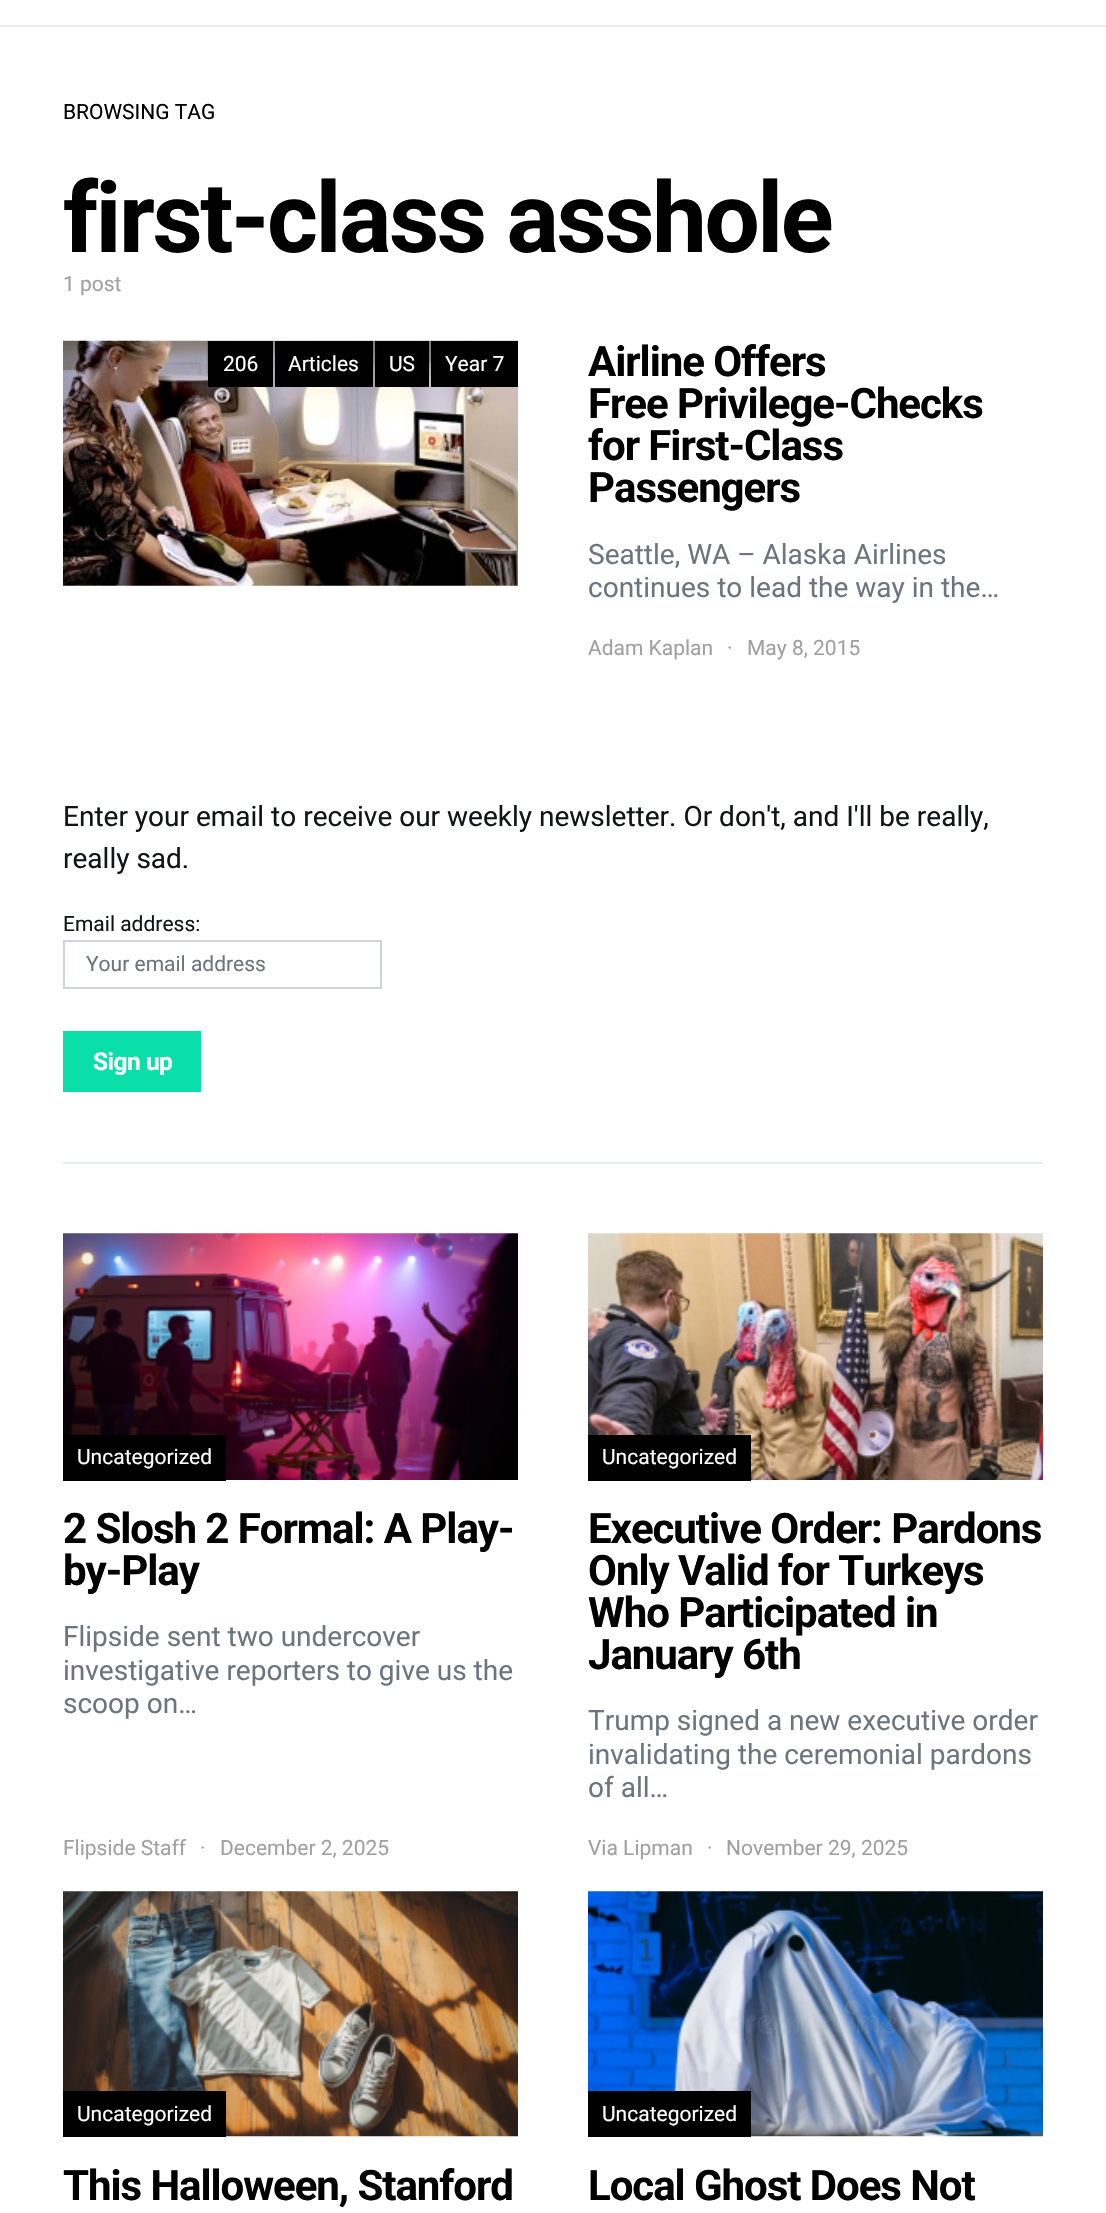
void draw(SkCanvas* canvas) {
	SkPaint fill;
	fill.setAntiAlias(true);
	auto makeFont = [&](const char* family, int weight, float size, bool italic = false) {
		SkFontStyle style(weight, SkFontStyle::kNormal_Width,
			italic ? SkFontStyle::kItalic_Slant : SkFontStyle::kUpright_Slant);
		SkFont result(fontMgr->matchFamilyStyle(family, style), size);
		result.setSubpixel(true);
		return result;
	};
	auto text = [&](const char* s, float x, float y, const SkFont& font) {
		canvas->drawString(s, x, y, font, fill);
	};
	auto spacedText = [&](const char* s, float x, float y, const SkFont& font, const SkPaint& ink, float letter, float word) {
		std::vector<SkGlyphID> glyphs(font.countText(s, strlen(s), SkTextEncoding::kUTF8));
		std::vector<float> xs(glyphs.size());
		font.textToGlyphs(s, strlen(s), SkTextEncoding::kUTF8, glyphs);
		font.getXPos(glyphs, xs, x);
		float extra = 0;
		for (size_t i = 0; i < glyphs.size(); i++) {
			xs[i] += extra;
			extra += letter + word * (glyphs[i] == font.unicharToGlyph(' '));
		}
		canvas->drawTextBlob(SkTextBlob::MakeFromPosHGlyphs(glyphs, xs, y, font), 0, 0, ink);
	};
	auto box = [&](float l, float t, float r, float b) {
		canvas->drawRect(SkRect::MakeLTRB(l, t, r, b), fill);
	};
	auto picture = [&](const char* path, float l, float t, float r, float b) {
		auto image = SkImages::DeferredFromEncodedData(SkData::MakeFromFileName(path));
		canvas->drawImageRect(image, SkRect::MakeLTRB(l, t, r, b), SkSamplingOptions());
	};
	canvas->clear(0xFFFFFFFF);
	fill.setColor(0xFFE9ECEF);
	box(0, 25, 1106, 27);
	picture("image0.png", 63, 340, 518, 586);
	fill.setColor(0xFF000000);
	box(208, 341, 273, 387);
	box(275, 341, 373, 387);
	box(375, 341, 429, 387);
	box(431, 341, 518, 387);
	fill.setStyle(SkPaint::kStroke_Style);
	fill.setStrokeWidth(2);
	fill.setColor(0xFFCED4DA);
	canvas->drawRect(SkRect::MakeLTRB(64, 941, 381, 988), fill);
	fill.setStyle(SkPaint::kFill_Style);
	fill.setColor(0xFF0ADEA9);
	box(63, 1031, 201, 1092);
	fill.setColor(0xFFE9ECEF);
	box(63, 1162, 1043, 1164);
	picture("image1.png", 63, 1233, 518, 1480);
	fill.setColor(0xFF000000);
	box(63, 1435, 226, 1481);
	picture("image2.png", 588, 1233, 1043, 1480);
	box(588, 1435, 751, 1481);
	picture("image3.png", 63, 1891, 518, 2137);
	box(63, 2091, 226, 2137);
	picture("image4.png", 588, 1891, 1043, 2137);
	box(588, 2091, 751, 2137);
	auto font1 = makeFont("Roboto", 400, 21);
	text("BROWSING TAG", 63, 119, font1);
	auto font2 = makeFont("Roboto", 700, 98);
	spacedText("first-class asshole", 63, 252, font2, fill, -2.5f, 0);
	fill.setColor(0xFFA0A0A0);
	text("1 post", 63, 291, font1);
	fill.setColor(0xFFFFFFFF);
	text("206", 223, 371, font1);
	text("Articles", 288, 371, font1);
	text("US", 389, 371, font1);
	text("Year 7", 445, 371, font1);
	auto font3 = makeFont("Roboto", 700, 42);
	fill.setColor(0xFF000000);
	spacedText("Airline Offers", 588, 376, font3, fill, -1.05f, 0);
	spacedText("Free Privilege-Checks", 588, 418, font3, fill, -1.05f, 0);
	spacedText("for First-Class", 588, 460, font3, fill, -1.05f, 0);
	spacedText("Passengers", 588, 502, font3, fill, -1.05f, 0);
	auto font4 = makeFont("Roboto", 400, 28);
	fill.setColor(0xFF6C757D);
	text("Seattle, WA – Alaska Airlines", 588, 564, font4);
	text("continues to lead the way in the…", 588, 597, font4);
	fill.setColor(0xFFA0A0A0);
	text("Adam Kaplan", 588, 655, font1);
	text("·", 727, 655, font1);
	text("May 8, 2015", 747, 655, font1);
	fill.setColor(0xFF121416);
	text("Enter your email to receive our weekly newsletter. Or don't, and I'll be really,", 63, 826, font4);
	text("really sad.", 63, 868, font4);
	text("Email address:", 63, 931, font1);
	fill.setColor(0xFF6C757D);
	text("Your email address", 86, 971, font1);
	auto font5 = makeFont("Roboto", 700, 24.5f);
	fill.setColor(0xFFFFFFFF);
	spacedText("Sign up", 93, 1070, font5, fill, -0.5f, 0);
	text("Uncategorized", 77, 1464, font1);
	fill.setColor(0xFF000000);
	spacedText("2 Slosh 2 Formal: A Play-", 63, 1543, font3, fill, -1.05f, 0);
	spacedText("by-Play", 63, 1585, font3, fill, -1.05f, 0);
	fill.setColor(0xFF6C757D);
	text("Flipside sent two undercover", 63, 1646, font4);
	text("investigative reporters to give us the", 63, 1680, font4);
	text("scoop on…", 63, 1713, font4);
	fill.setColor(0xFFA0A0A0);
	text("Flipside Staff", 63, 1855, font1);
	text("·", 200, 1855, font1);
	text("December 2, 2025", 220, 1855, font1);
	fill.setColor(0xFFFFFFFF);
	text("Uncategorized", 602, 1464, font1);
	fill.setColor(0xFF000000);
	spacedText("Executive Order: Pardons", 588, 1543, font3, fill, -1.05f, 0);
	spacedText("Only Valid for Turkeys", 588, 1585, font3, fill, -1.05f, 0);
	spacedText("Who Participated in", 588, 1627, font3, fill, -1.05f, 0);
	spacedText("January 6th", 588, 1669, font3, fill, -1.05f, 0);
	fill.setColor(0xFF6C757D);
	text("Trump signed a new executive order", 588, 1730, font4);
	text("invalidating the ceremonial pardons", 588, 1764, font4);
	text("of all…", 588, 1797, font4);
	fill.setColor(0xFFA0A0A0);
	text("Via Lipman", 588, 1855, font1);
	text("·", 707, 1855, font1);
	text("November 29, 2025", 726, 1855, font1);
	fill.setColor(0xFFFFFFFF);
	text("Uncategorized", 77, 2121, font1);
	fill.setColor(0xFF000000);
	spacedText("This Halloween, Stanford", 63, 2200, font3, fill, -1.05f, 0);
	fill.setColor(0xFFFFFFFF);
	text("Uncategorized", 602, 2121, font1);
	fill.setColor(0xFF000000);
	spacedText("Local Ghost Does Not", 588, 2200, font3, fill, -1.05f, 0);
}
